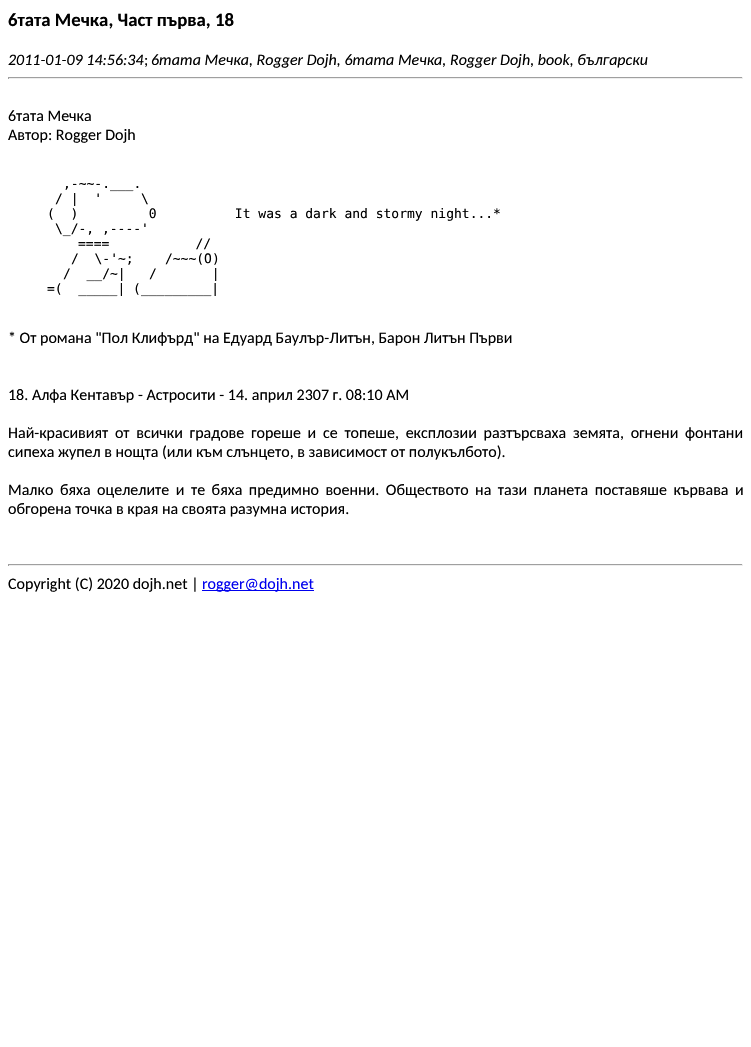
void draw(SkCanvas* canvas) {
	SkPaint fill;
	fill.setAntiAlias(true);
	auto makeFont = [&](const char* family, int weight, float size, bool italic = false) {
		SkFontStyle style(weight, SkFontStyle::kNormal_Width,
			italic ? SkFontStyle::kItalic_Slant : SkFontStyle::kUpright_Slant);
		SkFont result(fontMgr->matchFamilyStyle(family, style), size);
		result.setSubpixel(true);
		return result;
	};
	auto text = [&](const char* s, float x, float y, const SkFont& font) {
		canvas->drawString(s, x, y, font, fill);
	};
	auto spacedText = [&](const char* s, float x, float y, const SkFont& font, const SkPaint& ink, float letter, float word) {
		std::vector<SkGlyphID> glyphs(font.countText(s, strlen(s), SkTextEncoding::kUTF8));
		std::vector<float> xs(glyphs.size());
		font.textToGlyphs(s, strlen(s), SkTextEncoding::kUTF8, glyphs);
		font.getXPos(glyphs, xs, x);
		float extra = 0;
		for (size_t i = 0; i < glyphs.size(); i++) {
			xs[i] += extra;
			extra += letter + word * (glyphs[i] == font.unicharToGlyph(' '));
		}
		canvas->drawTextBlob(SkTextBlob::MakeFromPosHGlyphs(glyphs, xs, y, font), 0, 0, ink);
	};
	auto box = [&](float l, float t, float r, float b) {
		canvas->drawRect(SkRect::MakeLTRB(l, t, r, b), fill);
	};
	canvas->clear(0xFFFFFFFF);
	fill.setColor(0xFF9F9F9F);
	box(8, 77, 743, 78);
	fill.setColor(0xFFEEEEEE);
	box(742, 77, 743, 79);
	box(8, 78, 743, 79);
	fill.setColor(0xFF9F9F9F);
	box(8, 77, 9, 79);
	box(8, 564, 743, 565);
	fill.setColor(0xFFEEEEEE);
	box(742, 564, 743, 566);
	box(8, 565, 743, 566);
	fill.setColor(0xFF9F9F9F);
	box(8, 564, 9, 566);
	fill.setColor(0xFF0000EE);
	box(202, 590, 314, 591);
	auto font1 = makeFont("Carlito", 700, 18.75f);
	fill.setColor(0xFF000000);
	text("6тата Мечка, Част първа, 18", 8, 26, font1);
	auto font2 = makeFont("Carlito", 400, 16, true);
	text("2011-01-09 14:56:34", 8, 65, font2);
	auto font3 = makeFont("Carlito", 400, 16);
	text(";", 144, 65, font3);
	text("6тата Мечка, Rogger Dojh, 6тата Мечка, Rogger Dojh, book, български", 151, 65, font2);
	text("6тата Мечка", 8, 121, font3);
	text("Автор: Rogger Dojh", 8, 140, font3);
	auto font4 = makeFont("DejaVu Sans Mono", 400, 13);
	text(",-~~-.___.", 63, 188, font4);
	text("/ |  '     \\", 55, 203, font4);
	text("(  )         0          It was a dark and stormy night...*", 47, 218, font4);
	text("\\_/-, ,----'", 55, 233, font4);
	text("====           //", 78, 248, font4);
	text("/  \\-'~;    /~~~(O)", 71, 263, font4);
	text("/  __/~|   /       |", 63, 278, font4);
	text("=(  _____| (_________|", 47, 293, font4);
	text("* От романа \"Пол Клифърд\" на Едуард Баулър-Литън, Барон Литън Първи", 8, 343, font3);
	text("18. Алфа Кентавър - Астросити - 14. април 2307 г. 08:10 AM", 8, 400, font3);
	spacedText("Най-красивият от всички градове гореше и се топеше, експлозии разтърсваха земята, огнени фонтани", 8, 438, font3, fill, 0, 3.1f);
	text("сипеха жупел в нощта (или към слънцето, в зависимост от полукълбото).", 8, 457, font3);
	spacedText("Малко бяха оцелелите и те бяха предимно военни. Обществото на тази планета поставяше кървава и", 8, 495, font3, fill, 0, 2.9f);
	text("обгорена точка в края на своята разумна история.", 8, 514, font3);
	text("Copyright (C) 2020 dojh.net |", 8, 589, font3);
	fill.setColor(0xFF0000EE);
	text("rogger@dojh.net", 202, 589, font3);
}
